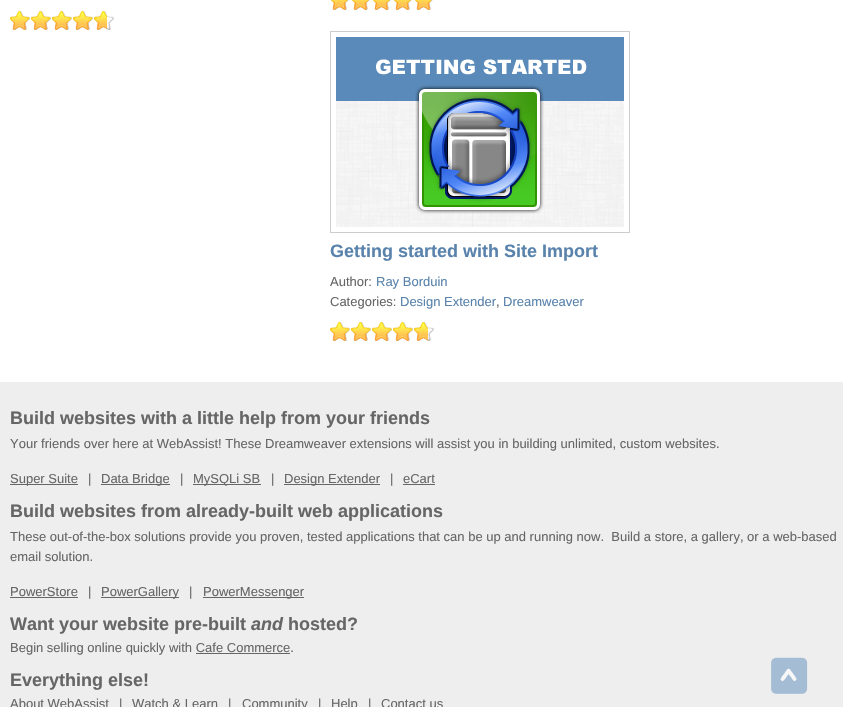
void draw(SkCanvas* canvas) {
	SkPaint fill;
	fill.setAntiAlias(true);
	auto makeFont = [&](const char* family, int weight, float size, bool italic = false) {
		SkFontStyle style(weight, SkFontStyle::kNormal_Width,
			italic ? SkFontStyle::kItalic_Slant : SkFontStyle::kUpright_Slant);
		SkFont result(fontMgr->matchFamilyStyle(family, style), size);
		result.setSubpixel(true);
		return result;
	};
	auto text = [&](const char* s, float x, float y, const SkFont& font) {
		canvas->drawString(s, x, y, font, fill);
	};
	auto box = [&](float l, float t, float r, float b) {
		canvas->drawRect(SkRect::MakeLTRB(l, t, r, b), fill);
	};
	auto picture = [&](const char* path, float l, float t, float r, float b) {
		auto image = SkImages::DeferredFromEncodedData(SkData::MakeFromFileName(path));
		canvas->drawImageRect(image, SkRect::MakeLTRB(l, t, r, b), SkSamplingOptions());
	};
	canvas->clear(0xFFEEEEEE);
	fill.setColor(0xFFFFFFFF);
	box(0, 0, 843, 382);
	picture("image1.png", 331, 0, 433, 10);
	picture("image0.png", 330, 0, 432, 10);
	picture("image2.png", 10, 11, 114, 30);
	picture("image3.png", 10, 11, 107, 30);
	fill.setStyle(SkPaint::kStroke_Style);
	fill.setStrokeWidth(1);
	fill.setColor(0xFFCCCCCC);
	canvas->drawRect(SkRect::MakeLTRB(330.5f, 31.5f, 629.5f, 232.5f), fill);
	picture("image4.png", 336, 37, 624, 227);
	picture("image2.png", 330, 322, 434, 341);
	picture("image5.png", 330, 322, 428, 341);
	fill.setStyle(SkPaint::kFill_Style);
	fill.setColor(0xFF666666);
	box(10, 484, 78, 485);
	box(101, 484, 170, 485);
	box(193, 484, 261, 485);
	box(284, 484, 380, 485);
	box(403, 484, 435, 485);
	box(10, 597, 78, 598);
	box(101, 597, 179, 598);
	box(203, 597, 304, 598);
	box(196, 653, 290, 654);
	picture("image6.png", 771, 657, 808, 694);
	auto font1 = makeFont("Liberation Sans", 700, 18);
	fill.setColor(0xFF5983AC);
	text("Getting started with Site Import", 330, 257, font1);
	auto font2 = makeFont("Liberation Sans", 400, 13);
	fill.setColor(0xFF666666);
	text("Author:", 330, 286, font2);
	fill.setColor(0xFF5983AC);
	text("Ray Borduin", 376, 286, font2);
	fill.setColor(0xFF666666);
	text("Categories:", 330, 306, font2);
	fill.setColor(0xFF5983AC);
	text("Design Extender", 400, 306, font2);
	fill.setColor(0xFF666666);
	text(",", 496, 306, font2);
	fill.setColor(0xFF5983AC);
	text("Dreamweaver", 503, 306, font2);
	fill.setColor(0xFF666666);
	text("Build websites with a little help from your friends", 10, 424, font1);
	text("Your friends over here at WebAssist! These Dreamweaver extensions will assist you in building unlimited, custom websites.", 10, 448, font2);
	text("Super Suite", 10, 483, font2);
	text("|", 88, 483, font2);
	text("Data Bridge", 101, 483, font2);
	text("|", 180, 483, font2);
	text("MySQLi SB", 193, 483, font2);
	text("|", 271, 483, font2);
	text("Design Extender", 284, 483, font2);
	text("|", 390, 483, font2);
	text("eCart", 403, 483, font2);
	text("Build websites from already-built web applications", 10, 517, font1);
	text("These out-of-the-box solutions provide you proven, tested applications that can be up and running now.  Build a store, a gallery, or a web-based", 10, 541, font2);
	text("email solution.", 10, 561, font2);
	text("PowerStore", 10, 596, font2);
	text("|", 88, 596, font2);
	text("PowerGallery", 101, 596, font2);
	text("|", 189, 596, font2);
	text("PowerMessenger", 203, 596, font2);
	text("Want your website pre-built", 10, 630, font1);
	auto font3 = makeFont("Liberation Sans", 700, 18, true);
	text("and", 251, 630, font3);
	text("hosted?", 288, 630, font1);
	text("Begin selling online quickly with Cafe Commerce.", 10, 652, font2);
	text("Everything else!", 10, 686, font1);
	text("About WebAssist", 10, 708, font2);
	text("|", 119, 708, font2);
	text("Watch & Learn", 132, 708, font2);
	text("|", 228, 708, font2);
	text("Community", 242, 708, font2);
	text("|", 318, 708, font2);
	text("Help", 331, 708, font2);
	text("|", 368, 708, font2);
	text("Contact us", 381, 708, font2);
}
